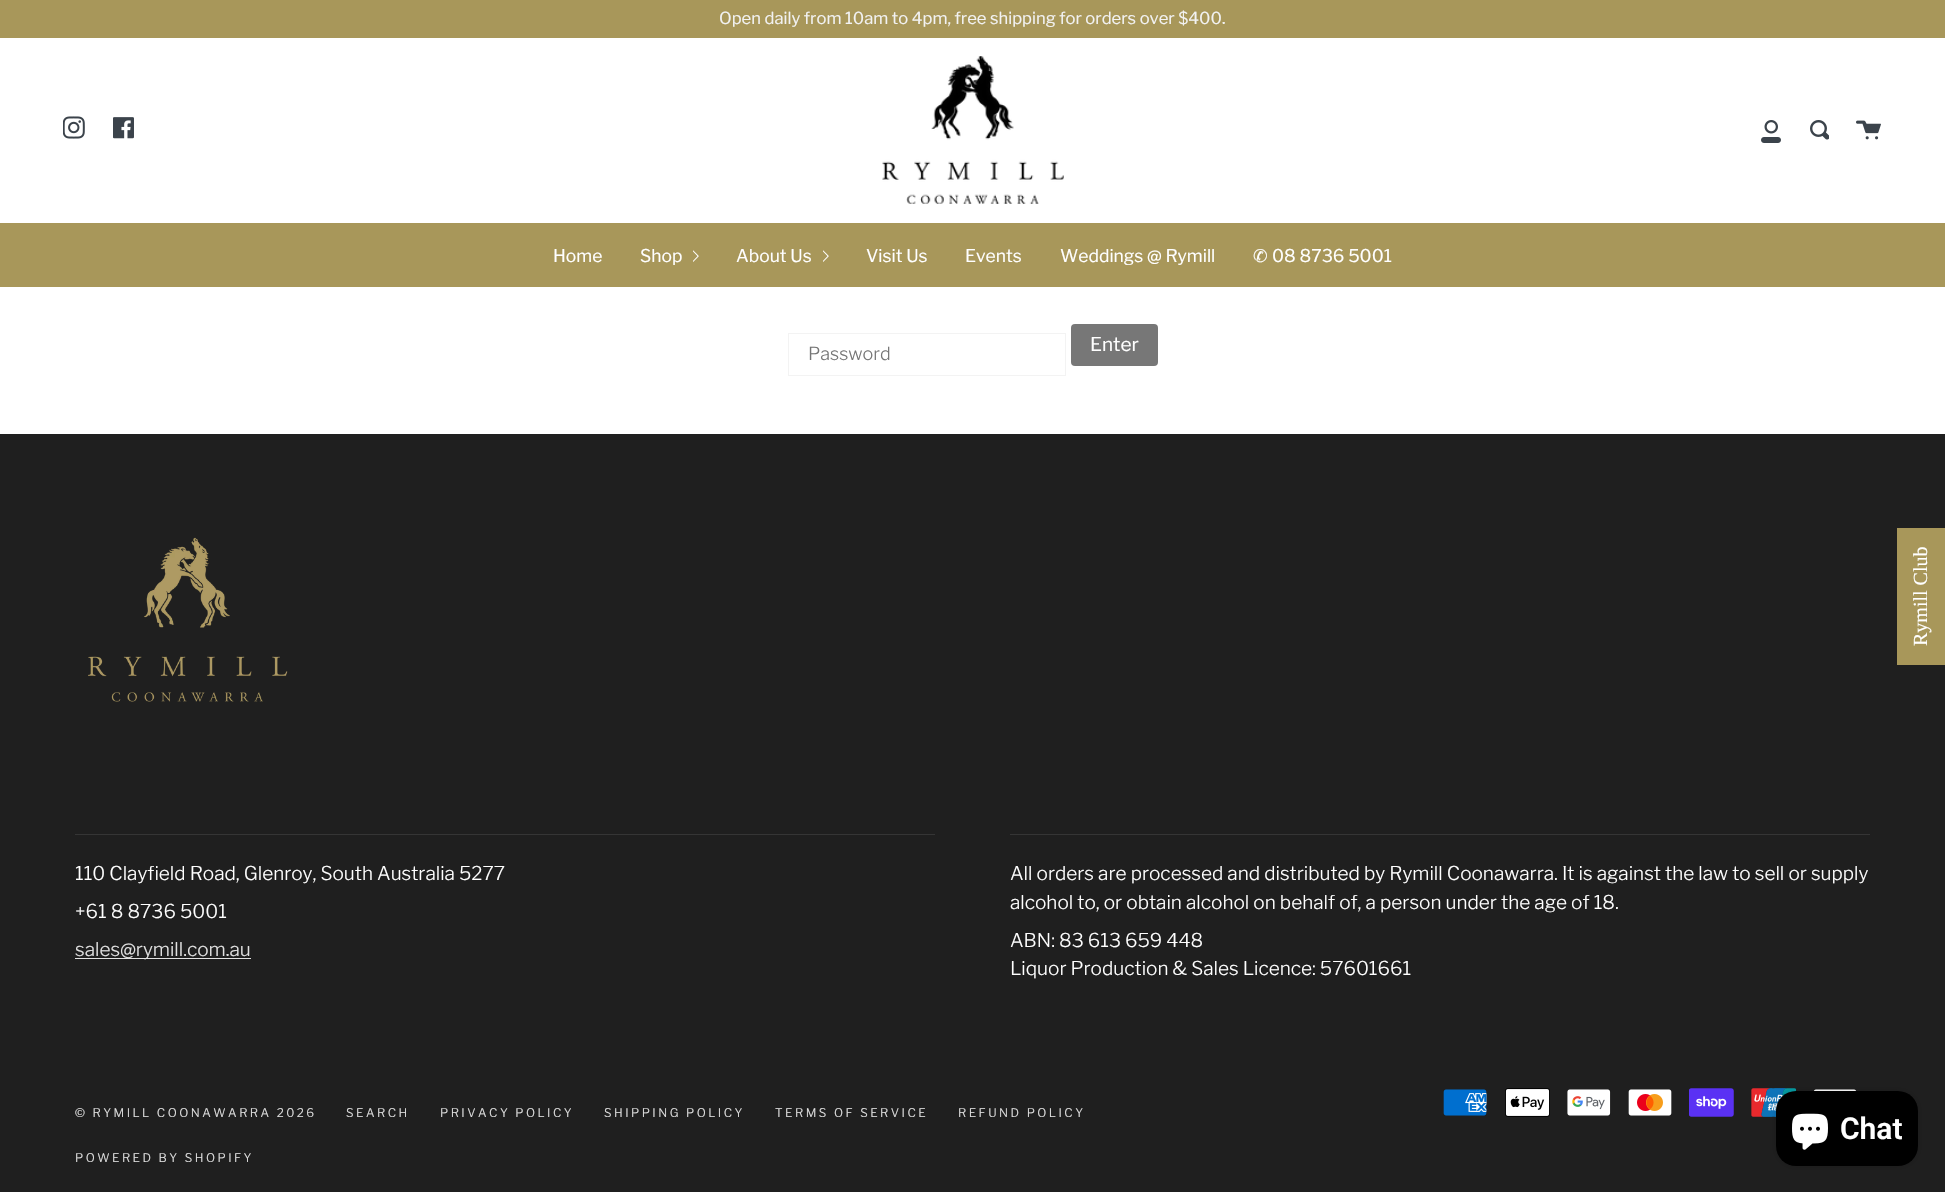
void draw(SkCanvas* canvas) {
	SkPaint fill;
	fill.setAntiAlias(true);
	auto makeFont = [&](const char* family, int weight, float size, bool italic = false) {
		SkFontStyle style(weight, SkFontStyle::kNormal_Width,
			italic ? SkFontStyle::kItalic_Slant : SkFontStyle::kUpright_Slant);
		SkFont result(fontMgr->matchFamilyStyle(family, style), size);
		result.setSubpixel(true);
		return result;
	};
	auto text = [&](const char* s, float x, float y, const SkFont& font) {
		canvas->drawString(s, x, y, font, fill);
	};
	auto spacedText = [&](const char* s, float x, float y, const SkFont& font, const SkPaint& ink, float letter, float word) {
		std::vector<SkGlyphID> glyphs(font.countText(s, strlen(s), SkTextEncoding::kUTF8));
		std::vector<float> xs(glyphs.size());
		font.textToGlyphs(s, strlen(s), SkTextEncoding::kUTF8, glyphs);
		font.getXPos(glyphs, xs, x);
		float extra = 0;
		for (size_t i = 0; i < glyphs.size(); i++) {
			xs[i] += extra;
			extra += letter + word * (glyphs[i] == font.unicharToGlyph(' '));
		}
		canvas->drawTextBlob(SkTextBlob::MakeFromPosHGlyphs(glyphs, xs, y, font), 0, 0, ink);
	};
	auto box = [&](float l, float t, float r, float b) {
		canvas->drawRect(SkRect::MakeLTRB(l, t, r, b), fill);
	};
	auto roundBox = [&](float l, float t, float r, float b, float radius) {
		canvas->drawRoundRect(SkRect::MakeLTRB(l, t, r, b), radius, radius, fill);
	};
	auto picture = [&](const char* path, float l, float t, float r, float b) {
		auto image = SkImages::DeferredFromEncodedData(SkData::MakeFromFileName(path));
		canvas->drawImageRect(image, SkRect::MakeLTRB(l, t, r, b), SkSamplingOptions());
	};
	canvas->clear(0xFFFFFFFF);
	fill.setColor(0xFFA8975A);
	box(0, 0, 1945, 38);
	box(0, 223, 1945, 287);
	picture("image0.png", 63, 116, 85, 139);
	picture("image1.png", 113, 117, 134, 139);
	picture("image2.png", 882, 56, 1064, 204);
	picture("image3.png", 1761, 120, 1781, 143);
	picture("image4.png", 1810, 120, 1829, 140);
	picture("image5.png", 1856, 120, 1881, 140);
	picture("image6.png", 693, 250, 699, 262);
	picture("image6.png", 823, 250, 829, 262);
	fill.setColor(0xFF777777);
	roundBox(1071, 324, 1158, 366, 4);
	fill.setStyle(SkPaint::kStroke_Style);
	fill.setStrokeWidth(1);
	fill.setColor(0xFFF3F3F3);
	canvas->drawRect(SkRect::MakeLTRB(788.5f, 333.5f, 1065.5f, 375.5f), fill);
	fill.setStyle(SkPaint::kFill_Style);
	fill.setColor(0xFF1F1F1F);
	box(0, 434, 1945, 1192);
	fill.setColor(0xFFA8975A);
	box(1897, 528, 1945, 665);
	picture("image7.png", 88, 537, 288, 702);
	fill.setColor(0xFF353535);
	box(75, 834, 935, 835);
	fill.setColor(0xFFE1E1E1);
	box(75, 958, 251, 959);
	fill.setColor(0xFF353535);
	box(1010, 834, 1870, 835);
	picture("image8.png", 1443, 1089, 1487, 1116);
	picture("image9.png", 1505, 1088, 1550, 1117);
	picture("image10.png", 1567, 1089, 1611, 1116);
	picture("image11.png", 1628, 1089, 1672, 1116);
	picture("image12.png", 1689, 1088, 1734, 1117);
	picture("image13.png", 1751, 1088, 1796, 1117);
	picture("image14.png", 1813, 1089, 1857, 1091);
	fill.setColor(0x26000000);
	fill.setMaskFilter(SkMaskFilter::MakeBlur(kNormal_SkBlurStyle, 3));
	canvas->drawRoundRect(SkRect::MakeLTRB(1776, 1091, 1918, 1166), 20, 20, fill);
	fill.setMaskFilter(nullptr);
	fill.setColor(0xFF000000);
	roundBox(1776, 1091, 1918, 1166, 20);
	picture("image15.png", 1792, 1113, 1828, 1150);
	auto font1 = makeFont("Libre Franklin", 400, 16.6f);
	fill.setColor(0xFFF2F2F2);
	text("Open daily from 10am to 4pm, free shipping for orders over $400.", 719, 24, font1);
	auto font2 = makeFont("Libre Franklin", 400, 17.5f);
	fill.setColor(0xFFFFFFFF);
	text("Home", 553, 262, font2);
	text("Shop", 640, 262, font2);
	text("About Us", 736, 262, font2);
	text("Visit Us", 866, 262, font2);
	text("Events", 965, 262, font2);
	text("Weddings @ Rymill", 1060, 262, font2);
	auto font3 = makeFont("DejaVu Sans", 400, 17.5f);
	text("✆", 1253, 262, font3);
	text("08 8736 5001", 1272, 262, font2);
	auto font4 = makeFont("Libre Franklin", 400, 19);
	text("Enter", 1090, 351, font4);
	auto font5 = makeFont("Libre Franklin", 300, 18);
	fill.setColor(0xFF757575);
	text("Password", 808, 360, font5);
	auto font6 = makeFont("Liberation Serif", 400, 20);
	fill.setColor(0xFFFFFFFF);
	canvas->save();
	canvas->rotate(-90, 1927, 646);
	text("Rymill Club", 1927, 646, font6);
	canvas->restore();
	auto font7 = makeFont("Libre Franklin", 300, 19);
	text("110 Clayfield Road, Glenroy, South Australia 5277", 75, 880, font7);
	text("+61 8 8736 5001", 75, 918, font7);
	fill.setColor(0xFFE1E1E1);
	text("sales@rymill.com.au", 75, 956, font7);
	fill.setColor(0xFFFFFFFF);
	text("All orders are processed and distributed by Rymill Coonawarra. It is against the law to sell or supply", 1010, 880, font7);
	text("alcohol to, or obtain alcohol on behalf of, a person under the age of 18.", 1010, 909, font7);
	text("ABN: 83 613 659 448", 1010, 947, font7);
	text("Liquor Production & Sales Licence: 57601661", 1010, 975, font7);
	auto font8 = makeFont("Libre Franklin", 300, 11.9f);
	fill.setColor(0xFFE1E1E1);
	spacedText("© RYMILL COONAWARRA 2026", 75, 1117, font8, fill, 2.5f, 0);
	spacedText("SEARCH", 346, 1117, font8, fill, 2.5f, 0);
	spacedText("PRIVACY POLICY", 440, 1117, font8, fill, 2.5f, 0);
	spacedText("SHIPPING POLICY", 604, 1117, font8, fill, 2.5f, 0);
	spacedText("TERMS OF SERVICE", 775, 1117, font8, fill, 2.5f, 0);
	spacedText("REFUND POLICY", 958, 1117, font8, fill, 2.5f, 0);
	spacedText("POWERED BY SHOPIFY", 75, 1162, font8, fill, 2.5f, 0);
	auto font9 = makeFont("Roboto", 600, 30);
	fill.setColor(0xFFFFFFFF);
	text("Chat", 1840, 1139, font9);
}
